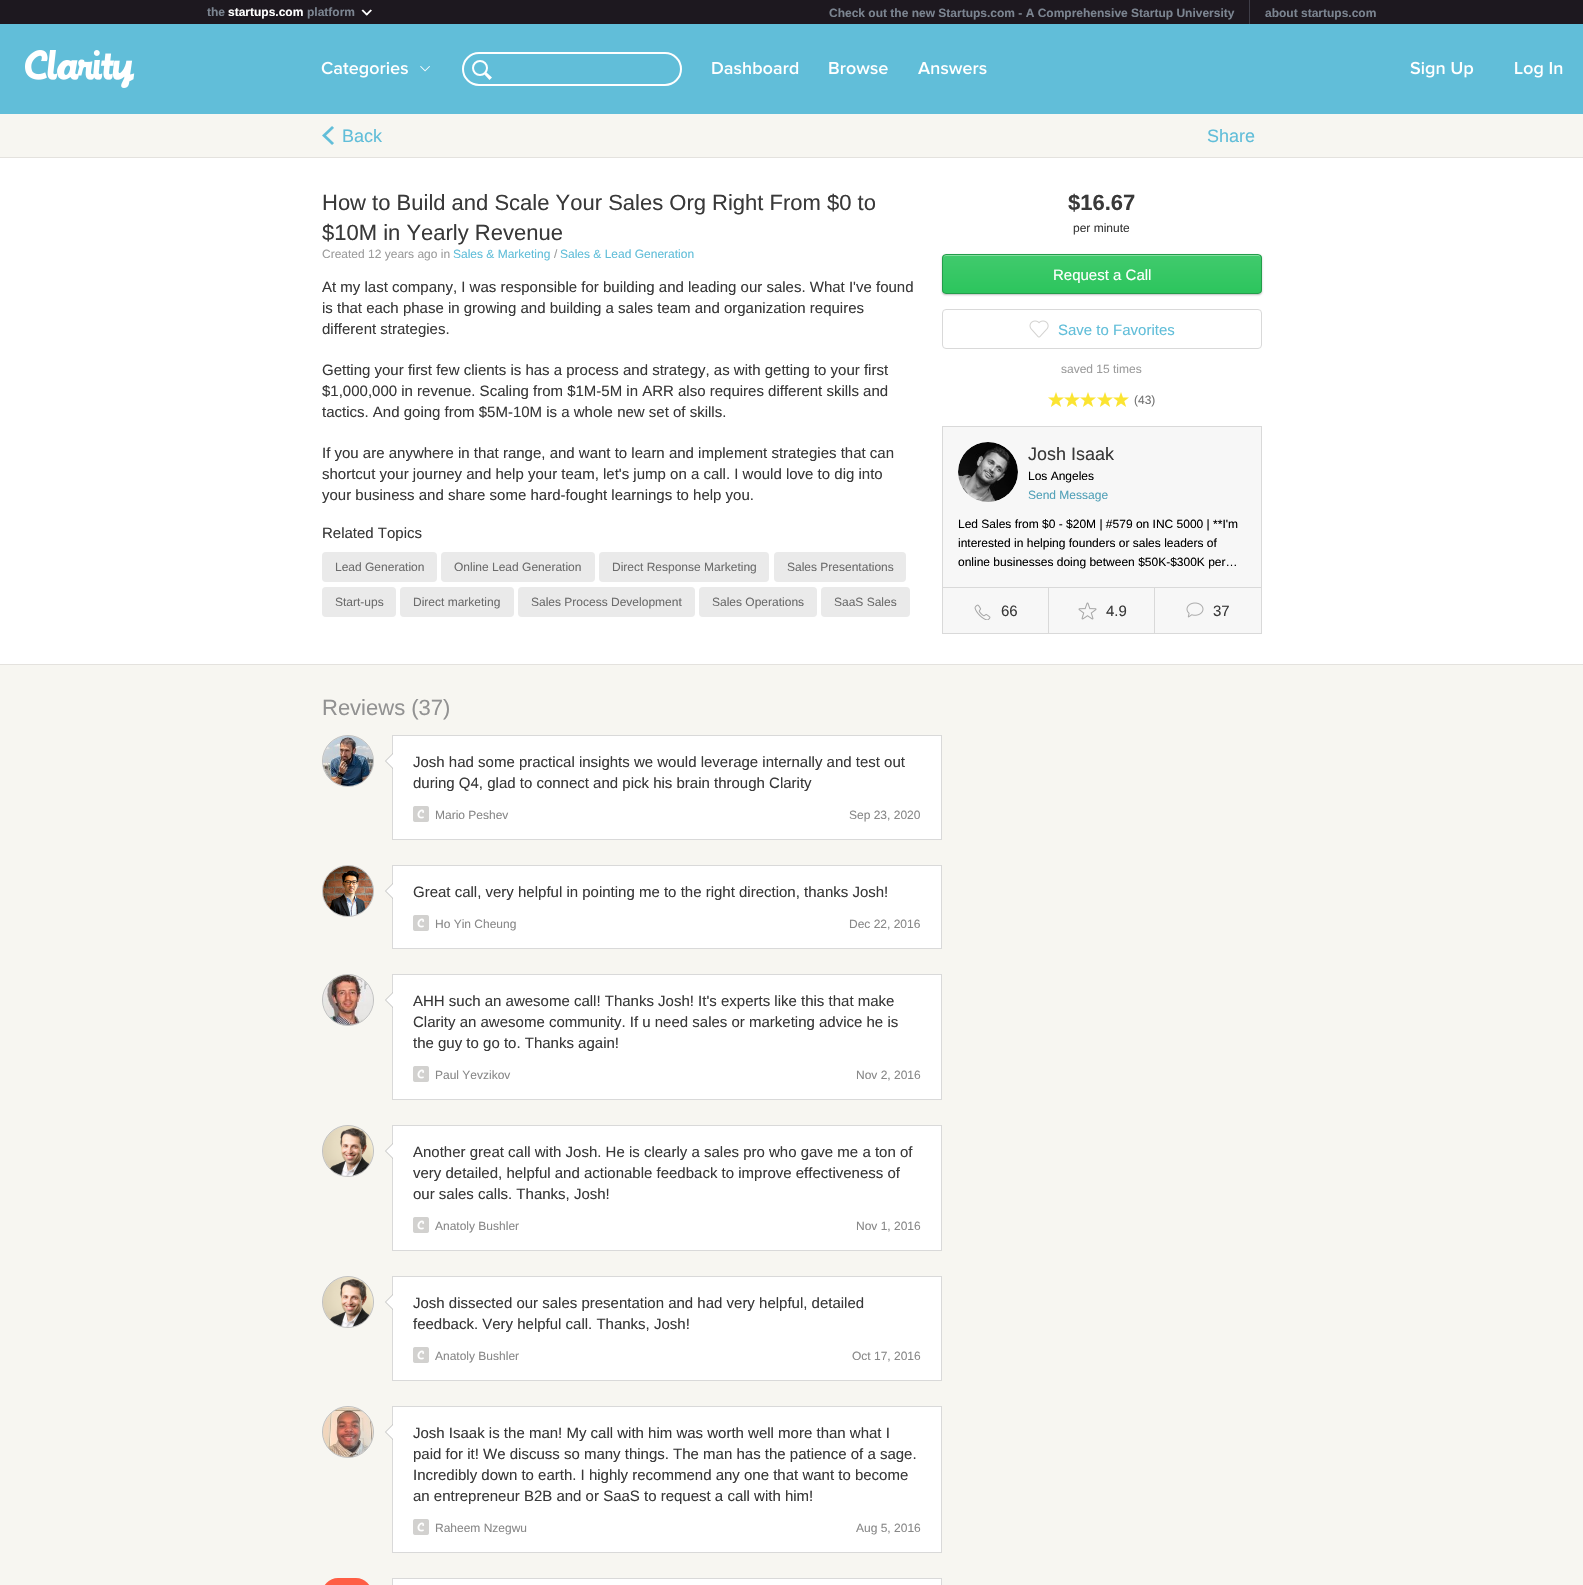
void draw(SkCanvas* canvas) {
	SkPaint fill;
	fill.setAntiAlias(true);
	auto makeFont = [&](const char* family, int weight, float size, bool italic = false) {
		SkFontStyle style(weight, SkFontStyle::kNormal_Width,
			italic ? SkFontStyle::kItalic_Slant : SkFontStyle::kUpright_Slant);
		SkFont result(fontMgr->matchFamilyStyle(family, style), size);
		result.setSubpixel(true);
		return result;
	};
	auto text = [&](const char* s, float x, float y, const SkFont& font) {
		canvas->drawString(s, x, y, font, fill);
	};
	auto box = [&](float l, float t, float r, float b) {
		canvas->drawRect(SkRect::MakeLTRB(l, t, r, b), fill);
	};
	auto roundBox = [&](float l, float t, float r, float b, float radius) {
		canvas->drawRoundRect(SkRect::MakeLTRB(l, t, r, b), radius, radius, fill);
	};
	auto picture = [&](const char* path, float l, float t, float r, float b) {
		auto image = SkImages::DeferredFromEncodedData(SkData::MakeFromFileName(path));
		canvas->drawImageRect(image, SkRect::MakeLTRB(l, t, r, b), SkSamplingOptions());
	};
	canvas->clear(0xFFFFFFFF);
	fill.setColor(0xFF1D181F);
	box(0, 0, 1583, 24);
	fill.setColor(0xFFFFFFFF);
	canvas->drawPath(SkPathBuilder().moveTo(368, 14.5f).lineTo(366.5f, 15.5f).lineTo(361.5f, 10.5f).lineTo(363, 9.5f).close().detach(), fill);
	canvas->drawPath(SkPathBuilder().moveTo(367, 15.5f).lineTo(365.5f, 14.5f).lineTo(370.5f, 9.5f).lineTo(372, 10.5f).close().detach(), fill);
	fill.setColor(0xFF3E3D47);
	box(1249, 0, 1250, 24);
	fill.setColor(0xFF61BED9);
	box(0, 24, 1583, 114);
	picture("image0.png", 25, 50, 135, 88);
	picture("image1.png", 321, 61, 408, 78);
	picture("image2.png", 420, 66, 430, 72);
	fill.setStyle(SkPaint::kStroke_Style);
	fill.setStrokeWidth(2);
	fill.setColor(0xFFFFFFFF);
	canvas->drawRoundRect(SkRect::MakeLTRB(463, 53, 681, 85), 16, 16, fill);
	canvas->drawCircle(480, 68, 7, fill);
	fill.setStyle(SkPaint::kFill_Style);
	canvas->drawPath(SkPathBuilder(SkPathFillType::kEvenOdd).moveTo(484, 74).lineTo(486, 72).lineTo(492, 77.5f).lineTo(489.5f, 80).close().detach(), fill);
	picture("image3.png", 712, 62, 799, 75);
	picture("image4.png", 829, 62, 888, 75);
	picture("image5.png", 918, 62, 987, 75);
	picture("image6.png", 1410, 61, 1474, 78);
	picture("image7.png", 1515, 62, 1563, 78);
	fill.setColor(0xFFF7F6F1);
	box(0, 114, 1583, 157);
	fill.setColor(0xFFE4E2DE);
	box(0, 157, 1583, 158);
	picture("image8.png", 322, 126, 334, 145);
	fill.setColor(0xFFEAEAEA);
	roundBox(322, 552, 437, 582, 4);
	roundBox(441, 552, 595, 582, 4);
	roundBox(599, 552, 769, 582, 4);
	roundBox(774, 552, 906, 582, 4);
	roundBox(322, 587, 396, 617, 4);
	roundBox(400, 587, 514, 617, 4);
	roundBox(518, 587, 695, 617, 4);
	roundBox(699, 587, 817, 617, 4);
	roundBox(821, 587, 910, 617, 4);
	fill.setColor(0x40000000);
	fill.setMaskFilter(SkMaskFilter::MakeBlur(kNormal_SkBlurStyle, 1));
	canvas->drawRoundRect(SkRect::MakeLTRB(942, 255, 1262, 295), 4, 4, fill);
	fill.setMaskFilter(nullptr);
	canvas->save();
	canvas->clipPath(SkPathBuilder().moveTo(946, 254).lineTo(1258, 254).cubicTo(1260, 254, 1262, 256, 1262, 258).lineTo(1262, 290).cubicTo(1262, 292, 1260, 294, 1258, 294).lineTo(946, 294).cubicTo(944, 294, 942, 292, 942, 290).lineTo(942, 258).cubicTo(942, 256, 944, 254, 946, 254).close().detach(), true);
	{
		const SkColor colors[] = {0xFF41CA6D, 0xFF2CC55D};
		const float stops[] = {0, 1};
		const SkPoint ends[] = {{1102, 255}, {1102, 293}};
		fill.setShader(SkGradientShader::MakeLinear(ends, colors, stops, 2, SkTileMode::kClamp));
		fill.setAlpha(255);
	}
	box(942, 255, 1262, 293);
	canvas->restore();
	fill.setShader(nullptr);
	fill.setColor(0xFF84DDA0);
	canvas->drawPath(SkPathBuilder().moveTo(946, 256).lineTo(1258, 256).cubicTo(1260, 256, 1261, 257, 1261, 259).lineTo(1260, 256).lineTo(1259, 255).lineTo(946, 255).cubicTo(944, 255, 943, 257, 943, 259).cubicTo(943, 257, 944, 256, 946, 256).close().detach(), fill);
	fill.setStyle(SkPaint::kStroke_Style);
	fill.setStrokeWidth(1);
	fill.setColor(0xFF239D4A);
	canvas->drawRoundRect(SkRect::MakeLTRB(942.5f, 254.5f, 1261.5f, 293.5f), 3.5f, 3.5f, fill);
	fill.setColor(0xFFD9D9D9);
	canvas->drawRoundRect(SkRect::MakeLTRB(942.5f, 309.5f, 1261.5f, 348.5f), 3.5f, 3.5f, fill);
	picture("image9.png", 1029, 320, 1049, 338);
	picture("image10.png", 1048, 392, 1064, 407);
	picture("image10.png", 1064, 392, 1080, 407);
	picture("image10.png", 1080, 392, 1096, 407);
	picture("image10.png", 1097, 392, 1113, 407);
	picture("image10.png", 1113, 392, 1129, 407);
	fill.setStyle(SkPaint::kFill_Style);
	fill.setColor(0xFFF7F7F7);
	canvas->drawRect(SkRect::MakeLTRB(942.5f, 426.5f, 1261.5f, 633.5f), fill);
	fill.setStyle(SkPaint::kStroke_Style);
	fill.setColor(0xFFD9D9D9);
	canvas->drawRect(SkRect::MakeLTRB(942.5f, 426.5f, 1261.5f, 633.5f), fill);
	fill.setStyle(SkPaint::kFill_Style);
	canvas->drawCircle(988, 472, 30, fill);
	picture("image11.png", 958, 442, 1018, 502);
	box(943, 587, 1261, 588);
	picture("image12.png", 974, 604, 991, 620);
	box(1154, 588, 1155, 633);
	box(1048, 588, 1049, 633);
	picture("image13.png", 1078, 602, 1097, 620);
	picture("image14.png", 1186, 602, 1204, 618);
	fill.setColor(0xFFF7F6F1);
	box(0, 665, 1583, 1585);
	fill.setColor(0xFFE4E2DE);
	box(0, 664, 1583, 665);
	fill.setColor(0xFFD9D9D9);
	canvas->drawCircle(348, 761, 25.5f, fill);
	fill.setStyle(SkPaint::kStroke_Style);
	fill.setColor(0xFFC0C0C0);
	canvas->drawCircle(348, 761, 25.5f, fill);
	picture("image15.png", 323, 736, 373, 786);
	fill.setStyle(SkPaint::kFill_Style);
	fill.setColor(0xFFFFFFFF);
	canvas->drawRect(SkRect::MakeLTRB(392.5f, 735.5f, 941.5f, 839.5f), fill);
	fill.setStyle(SkPaint::kStroke_Style);
	fill.setColor(0xFFD9D9D9);
	canvas->drawRect(SkRect::MakeLTRB(392.5f, 735.5f, 941.5f, 839.5f), fill);
	fill.setStyle(SkPaint::kFill_Style);
	fill.setColor(0xFFC0C0C0);
	canvas->drawPath(SkPathBuilder().moveTo(393, 753).lineTo(393, 769).lineTo(385, 761).close().detach(), fill);
	fill.setColor(0xFFFFFFFF);
	canvas->drawPath(SkPathBuilder().moveTo(393, 754).lineTo(393, 768).lineTo(386, 761).close().detach(), fill);
	picture("image16.png", 413, 806, 429, 822);
	fill.setColor(0xFFD9D9D9);
	canvas->drawCircle(348, 891, 25.5f, fill);
	fill.setStyle(SkPaint::kStroke_Style);
	fill.setColor(0xFFC0C0C0);
	canvas->drawCircle(348, 891, 25.5f, fill);
	picture("image17.png", 323, 866, 373, 916);
	fill.setStyle(SkPaint::kFill_Style);
	fill.setColor(0xFFFFFFFF);
	canvas->drawRect(SkRect::MakeLTRB(392.5f, 865.5f, 941.5f, 948.5f), fill);
	fill.setStyle(SkPaint::kStroke_Style);
	fill.setColor(0xFFD9D9D9);
	canvas->drawRect(SkRect::MakeLTRB(392.5f, 865.5f, 941.5f, 948.5f), fill);
	fill.setStyle(SkPaint::kFill_Style);
	fill.setColor(0xFFC0C0C0);
	canvas->drawPath(SkPathBuilder().moveTo(393, 883).lineTo(393, 899).lineTo(385, 891).close().detach(), fill);
	fill.setColor(0xFFFFFFFF);
	canvas->drawPath(SkPathBuilder().moveTo(393, 884).lineTo(393, 898).lineTo(386, 891).close().detach(), fill);
	picture("image16.png", 413, 915, 429, 931);
	fill.setColor(0xFFD9D9D9);
	canvas->drawCircle(348, 1000, 25.5f, fill);
	fill.setStyle(SkPaint::kStroke_Style);
	fill.setColor(0xFFC0C0C0);
	canvas->drawCircle(348, 1000, 25.5f, fill);
	picture("image18.png", 323, 975, 373, 1025);
	fill.setStyle(SkPaint::kFill_Style);
	fill.setColor(0xFFFFFFFF);
	canvas->drawRect(SkRect::MakeLTRB(392.5f, 974.5f, 941.5f, 1099.5f), fill);
	fill.setStyle(SkPaint::kStroke_Style);
	fill.setColor(0xFFD9D9D9);
	canvas->drawRect(SkRect::MakeLTRB(392.5f, 974.5f, 941.5f, 1099.5f), fill);
	fill.setStyle(SkPaint::kFill_Style);
	fill.setColor(0xFFC0C0C0);
	canvas->drawPath(SkPathBuilder().moveTo(393, 992).lineTo(393, 1008).lineTo(385, 1000).close().detach(), fill);
	fill.setColor(0xFFFFFFFF);
	canvas->drawPath(SkPathBuilder().moveTo(393, 993).lineTo(393, 1007).lineTo(386, 1000).close().detach(), fill);
	picture("image16.png", 413, 1066, 429, 1082);
	fill.setColor(0xFFD9D9D9);
	canvas->drawCircle(348, 1151, 25.5f, fill);
	fill.setStyle(SkPaint::kStroke_Style);
	fill.setColor(0xFFC0C0C0);
	canvas->drawCircle(348, 1151, 25.5f, fill);
	picture("image19.png", 323, 1126, 373, 1176);
	fill.setStyle(SkPaint::kFill_Style);
	fill.setColor(0xFFFFFFFF);
	canvas->drawRect(SkRect::MakeLTRB(392.5f, 1125.5f, 941.5f, 1250.5f), fill);
	fill.setStyle(SkPaint::kStroke_Style);
	fill.setColor(0xFFD9D9D9);
	canvas->drawRect(SkRect::MakeLTRB(392.5f, 1125.5f, 941.5f, 1250.5f), fill);
	fill.setStyle(SkPaint::kFill_Style);
	fill.setColor(0xFFC0C0C0);
	canvas->drawPath(SkPathBuilder().moveTo(393, 1143).lineTo(393, 1159).lineTo(385, 1151).close().detach(), fill);
	fill.setColor(0xFFFFFFFF);
	canvas->drawPath(SkPathBuilder().moveTo(393, 1144).lineTo(393, 1158).lineTo(386, 1151).close().detach(), fill);
	picture("image16.png", 413, 1217, 429, 1233);
	fill.setColor(0xFFD9D9D9);
	canvas->drawCircle(348, 1302, 25.5f, fill);
	fill.setStyle(SkPaint::kStroke_Style);
	fill.setColor(0xFFC0C0C0);
	canvas->drawCircle(348, 1302, 25.5f, fill);
	picture("image20.png", 323, 1277, 373, 1327);
	fill.setStyle(SkPaint::kFill_Style);
	fill.setColor(0xFFFFFFFF);
	canvas->drawRect(SkRect::MakeLTRB(392.5f, 1276.5f, 941.5f, 1380.5f), fill);
	fill.setStyle(SkPaint::kStroke_Style);
	fill.setColor(0xFFD9D9D9);
	canvas->drawRect(SkRect::MakeLTRB(392.5f, 1276.5f, 941.5f, 1380.5f), fill);
	fill.setStyle(SkPaint::kFill_Style);
	fill.setColor(0xFFC0C0C0);
	canvas->drawPath(SkPathBuilder().moveTo(393, 1294).lineTo(393, 1310).lineTo(385, 1302).close().detach(), fill);
	fill.setColor(0xFFFFFFFF);
	canvas->drawPath(SkPathBuilder().moveTo(393, 1295).lineTo(393, 1309).lineTo(386, 1302).close().detach(), fill);
	picture("image16.png", 413, 1347, 429, 1363);
	fill.setColor(0xFFD9D9D9);
	canvas->drawCircle(348, 1432, 25.5f, fill);
	fill.setStyle(SkPaint::kStroke_Style);
	fill.setColor(0xFFC0C0C0);
	canvas->drawCircle(348, 1432, 25.5f, fill);
	picture("image21.png", 323, 1407, 373, 1457);
	fill.setStyle(SkPaint::kFill_Style);
	fill.setColor(0xFFFFFFFF);
	canvas->drawRect(SkRect::MakeLTRB(392.5f, 1406.5f, 941.5f, 1552.5f), fill);
	fill.setStyle(SkPaint::kStroke_Style);
	fill.setColor(0xFFD9D9D9);
	canvas->drawRect(SkRect::MakeLTRB(392.5f, 1406.5f, 941.5f, 1552.5f), fill);
	fill.setStyle(SkPaint::kFill_Style);
	fill.setColor(0xFFC0C0C0);
	canvas->drawPath(SkPathBuilder().moveTo(393, 1424).lineTo(393, 1440).lineTo(385, 1432).close().detach(), fill);
	fill.setColor(0xFFFFFFFF);
	canvas->drawPath(SkPathBuilder().moveTo(393, 1425).lineTo(393, 1439).lineTo(386, 1432).close().detach(), fill);
	picture("image16.png", 413, 1519, 429, 1535);
	fill.setColor(0xFFFF5E45);
	roundBox(322, 1578, 372, 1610, 25);
	fill.setColor(0xFFFFFFFF);
	canvas->drawRect(SkRect::MakeLTRB(392.5f, 1578.5f, 941.5f, 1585.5f), fill);
	fill.setStyle(SkPaint::kStroke_Style);
	fill.setColor(0xFFD9D9D9);
	canvas->drawRect(SkRect::MakeLTRB(392.5f, 1578.5f, 941.5f, 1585.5f), fill);
	auto font1 = makeFont("Liberation Sans", 700, 12);
	fill.setStyle(SkPaint::kFill_Style);
	fill.setColor(0xFF7B8490);
	text("the", 207, 16, font1);
	fill.setColor(0xFFFFFFFF);
	text("startups.com", 228, 16, font1);
	fill.setColor(0xFF7B8490);
	text("platform", 307, 16, font1);
	text("Check out the new Startups.com - A Comprehensive Startup University", 829, 17, font1);
	text("about startups.com", 1265, 17, font1);
	auto font2 = makeFont("Liberation Sans", 400, 18);
	fill.setColor(0xFF61BED9);
	text("Back", 342, 142, font2);
	text("Share", 1207, 142, font2);
	auto font3 = makeFont("Liberation Sans", 400, 22);
	fill.setColor(0xFF393939);
	text("How to Build and Scale Your Sales Org Right From $0 to", 322, 210, font3);
	text("$10M in Yearly Revenue", 322, 240, font3);
	auto font4 = makeFont("Liberation Sans", 400, 12);
	fill.setColor(0xFF9C9C9C);
	text("Created 12 years ago in", 322, 258, font4);
	fill.setColor(0xFF61BED9);
	text("Sales & Marketing", 453, 258, font4);
	fill.setColor(0xFF9C9C9C);
	text("/", 554, 258, font4);
	fill.setColor(0xFF61BED9);
	text("Sales & Lead Generation", 560, 258, font4);
	auto font5 = makeFont("Liberation Sans", 400, 15);
	fill.setColor(0xFF393939);
	text("At my last company, I was responsible for building and leading our sales. What I've found", 322, 292, font5);
	text("is that each phase in growing and building a sales team and organization requires", 322, 313, font5);
	text("different strategies.", 322, 334, font5);
	text("Getting your first few clients is has a process and strategy, as with getting to your first", 322, 375, font5);
	text("$1,000,000 in revenue. Scaling from $1M-5M in ARR also requires different skills and", 322, 396, font5);
	text("tactics. And going from $5M-10M is a whole new set of skills.", 322, 417, font5);
	text("If you are anywhere in that range, and want to learn and implement strategies that can", 322, 458, font5);
	text("shortcut your journey and help your team, let's jump on a call. I would love to dig into", 322, 479, font5);
	text("your business and share some hard-fought learnings to help you.", 322, 500, font5);
	text("Related Topics", 322, 538, font5);
	fill.setColor(0xFF6C6C6C);
	text("Lead Generation", 335, 571, font4);
	text("Online Lead Generation", 454, 571, font4);
	text("Direct Response Marketing", 612, 571, font4);
	text("Sales Presentations", 787, 571, font4);
	text("Start-ups", 335, 606, font4);
	text("Direct marketing", 413, 606, font4);
	text("Sales Process Development", 531, 606, font4);
	text("Sales Operations", 712, 606, font4);
	text("SaaS Sales", 834, 606, font4);
	auto font6 = makeFont("Liberation Sans", 700, 22);
	fill.setColor(0xFF393939);
	text("$16.67", 1068, 210, font6);
	text("per minute", 1073, 232, font4);
	fill.setColor(0xFFFFFFFF);
	text("Request a Call", 1053, 280, font5);
	fill.setColor(0xFF61BED9);
	text("Save to Favorites", 1058, 335, font5);
	fill.setColor(0xFF9C9C9C);
	text("saved 15 times", 1061, 373, font4);
	fill.setColor(0xFF747474);
	text("(43)", 1134, 404, font4);
	fill.setColor(0xFF393939);
	text("Josh Isaak", 1028, 460, font2);
	fill.setColor(0xFF000000);
	text("Los Angeles", 1028, 480, font4);
	fill.setColor(0xFF52A1B8);
	text("Send Message", 1028, 499, font4);
	fill.setColor(0xFF000000);
	text("Led Sales from $0 - $20M | #579 on INC 5000 | **I'm", 958, 528, font4);
	text("interested in helping founders or sales leaders of", 958, 547, font4);
	text("online businesses doing between $50K-$300K per…", 958, 566, font4);
	fill.setColor(0xFF393939);
	text("66", 1001, 616, font5);
	text("4.9", 1106, 616, font5);
	text("37", 1213, 616, font5);
	fill.setColor(0xFF929292);
	text("Reviews (37)", 322, 715, font3);
	fill.setColor(0xFF393939);
	text("Josh had some practical insights we would leverage internally and test out", 413, 767, font5);
	text("during Q4, glad to connect and pick his brain through Clarity", 413, 788, font5);
	fill.setColor(0xFF888888);
	text("Mario Peshev", 435, 819, font4);
	text("Sep 23, 2020", 849, 819, font4);
	fill.setColor(0xFF393939);
	text("Great call, very helpful in pointing me to the right direction, thanks Josh!", 413, 897, font5);
	fill.setColor(0xFF888888);
	text("Ho Yin Cheung", 435, 928, font4);
	text("Dec 22, 2016", 849, 928, font4);
	fill.setColor(0xFF393939);
	text("AHH such an awesome call! Thanks Josh! It's experts like this that make", 413, 1006, font5);
	text("Clarity an awesome community. If u need sales or marketing advice he is", 413, 1027, font5);
	text("the guy to go to. Thanks again!", 413, 1048, font5);
	fill.setColor(0xFF888888);
	text("Paul Yevzikov", 435, 1079, font4);
	text("Nov 2, 2016", 856, 1079, font4);
	fill.setColor(0xFF393939);
	text("Another great call with Josh. He is clearly a sales pro who gave me a ton of", 413, 1157, font5);
	text("very detailed, helpful and actionable feedback to improve effectiveness of", 413, 1178, font5);
	text("our sales calls. Thanks, Josh!", 413, 1199, font5);
	fill.setColor(0xFF888888);
	text("Anatoly Bushler", 435, 1230, font4);
	text("Nov 1, 2016", 856, 1230, font4);
	fill.setColor(0xFF393939);
	text("Josh dissected our sales presentation and had very helpful, detailed", 413, 1308, font5);
	text("feedback. Very helpful call. Thanks, Josh!", 413, 1329, font5);
	fill.setColor(0xFF888888);
	text("Anatoly Bushler", 435, 1360, font4);
	text("Oct 17, 2016", 852, 1360, font4);
	fill.setColor(0xFF393939);
	text("Josh Isaak is the man! My call with him was worth well more than what I", 413, 1438, font5);
	text("paid for it! We discuss so many things. The man has the patience of a sage.", 413, 1459, font5);
	text("Incredibly down to earth. I highly recommend any one that want to become", 413, 1480, font5);
	text("an entrepreneur B2B and or SaaS to request a call with him!", 413, 1501, font5);
	fill.setColor(0xFF888888);
	text("Raheem Nzegwu", 435, 1532, font4);
	text("Aug 5, 2016", 856, 1532, font4);
}
